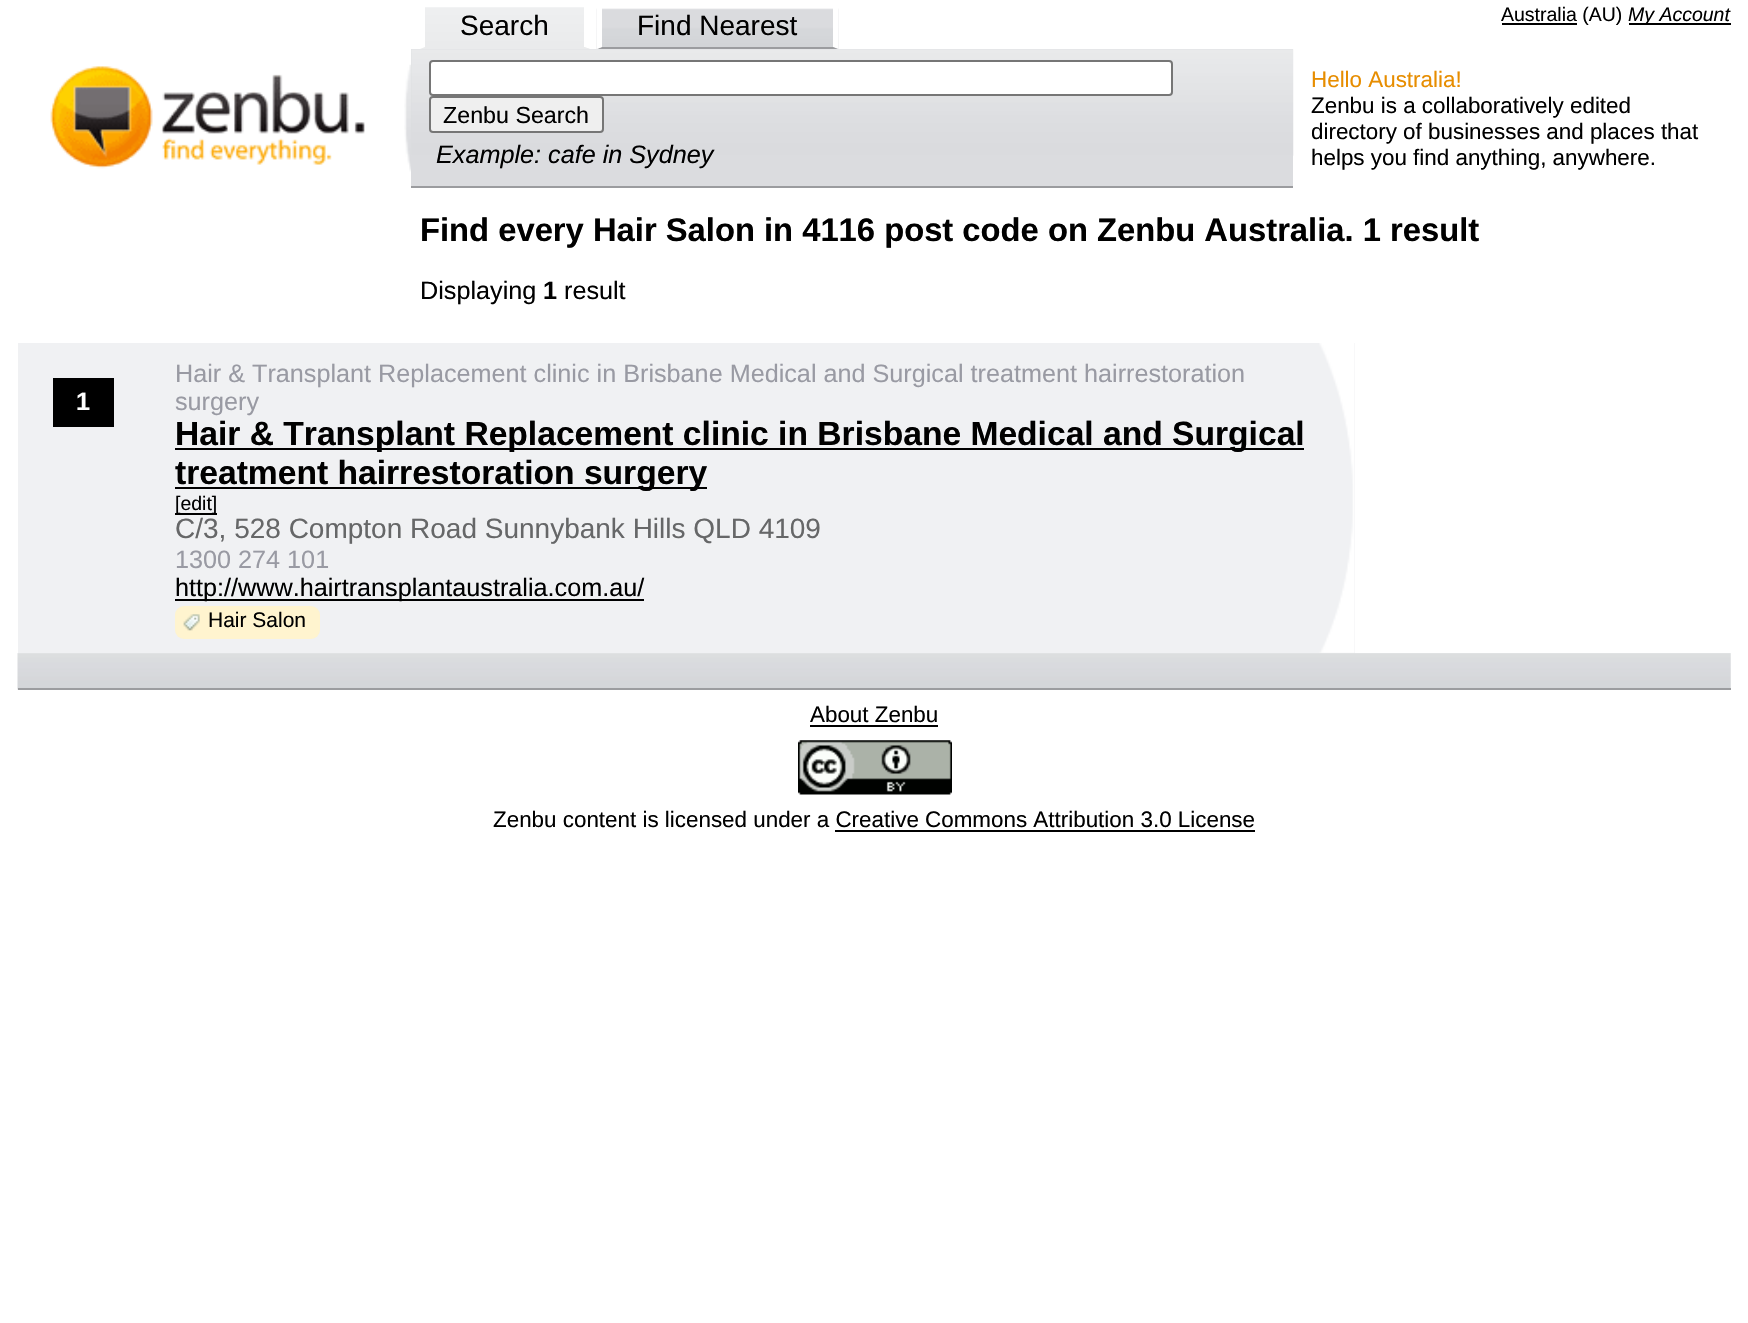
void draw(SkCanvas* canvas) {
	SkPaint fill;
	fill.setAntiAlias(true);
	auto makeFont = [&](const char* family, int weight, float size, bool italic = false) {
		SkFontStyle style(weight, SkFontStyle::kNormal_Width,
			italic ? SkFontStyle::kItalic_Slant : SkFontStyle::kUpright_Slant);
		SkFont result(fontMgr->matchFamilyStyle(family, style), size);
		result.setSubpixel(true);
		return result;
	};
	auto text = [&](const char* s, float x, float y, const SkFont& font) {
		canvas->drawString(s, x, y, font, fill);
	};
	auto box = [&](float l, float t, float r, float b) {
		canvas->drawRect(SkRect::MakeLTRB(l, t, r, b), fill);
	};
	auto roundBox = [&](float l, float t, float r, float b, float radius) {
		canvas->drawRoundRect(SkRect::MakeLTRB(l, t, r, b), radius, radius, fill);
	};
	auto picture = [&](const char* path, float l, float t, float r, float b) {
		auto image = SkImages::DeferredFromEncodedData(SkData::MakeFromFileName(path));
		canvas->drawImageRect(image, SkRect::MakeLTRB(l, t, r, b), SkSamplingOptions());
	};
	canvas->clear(0xFFFFFFFF);
	fill.setColor(0xFF000000);
	box(1502, 23, 1577, 25);
	box(1629, 23, 1731, 25);
	picture("image0.png", 420, 7, 590, 49);
	picture("image1.png", 596, 8, 839, 49);
	fill.setColor(0xFFFFFFFF);
	canvas->drawPath(SkPathBuilder().moveTo(590, 4).lineTo(590, 49).lineTo(584, 47).lineTo(584, 4).close().detach(), fill);
	fill.setColor(0xFFEAEBEC);
	canvas->drawPath(SkPathBuilder().moveTo(590, 49).lineTo(420, 49).lineTo(425, 47).lineTo(584, 47).close().detach(), fill);
	fill.setColor(0xFFFFFFFF);
	canvas->drawPath(SkPathBuilder().moveTo(420, 49).lineTo(420, 4).lineTo(425, 4).lineTo(425, 47).close().detach(), fill);
	canvas->drawPath(SkPathBuilder().moveTo(838, 4).lineTo(838, 49).lineTo(833, 47).lineTo(833, 4).close().detach(), fill);
	fill.setColor(0xFF9B9C9F);
	canvas->drawPath(SkPathBuilder().moveTo(838, 49).lineTo(597, 49).lineTo(602, 47).lineTo(833, 47).close().detach(), fill);
	fill.setColor(0xFFFFFFFF);
	canvas->drawPath(SkPathBuilder().moveTo(597, 49).lineTo(597, 4).lineTo(602, 4).lineTo(602, 47).close().detach(), fill);
	picture("image2.png", 404, 64, 411, 172);
	picture("image3.png", 50, 66, 365, 169);
	fill.setColor(0xFFDBDCDF);
	box(411, 49, 1293, 186);
	picture("image4.png", 411, 49, 1294, 156);
	fill.setColor(0xFF9B9C9F);
	box(411, 186, 1293, 188);
	fill.setColor(0xFFFFFFFF);
	canvas->drawRoundRect(SkRect::MakeLTRB(430, 61, 1172, 95), 3, 3, fill);
	fill.setStyle(SkPaint::kStroke_Style);
	fill.setStrokeWidth(2);
	fill.setColor(0xFF767676);
	canvas->drawRoundRect(SkRect::MakeLTRB(430, 61, 1172, 95), 3, 3, fill);
	fill.setStyle(SkPaint::kFill_Style);
	fill.setColor(0xFFEFEFEF);
	canvas->drawRoundRect(SkRect::MakeLTRB(430, 97, 603, 132), 3, 3, fill);
	fill.setStyle(SkPaint::kStroke_Style);
	fill.setColor(0xFF767676);
	canvas->drawRoundRect(SkRect::MakeLTRB(430, 97, 603, 132), 3, 3, fill);
	fill.setStyle(SkPaint::kFill_Style);
	fill.setColor(0xFFF0F1F3);
	box(18, 343, 1355, 653);
	picture("image5.png", 1319, 343, 1355, 653);
	fill.setColor(0xFF000000);
	box(53, 378, 114, 427);
	box(175, 448, 1304, 450);
	box(175, 487, 707, 489);
	box(175, 513, 217, 515);
	box(175, 599, 644, 601);
	fill.setColor(0xFFFFF4CF);
	roundBox(175, 606, 320, 639, 9);
	picture("image6.png", 183, 614, 200, 631);
	picture("image7.png", 17, 653, 1731, 690);
	fill.setColor(0xFF9B9C9F);
	box(18, 688, 1731, 690);
	fill.setColor(0xFF000000);
	box(810, 725, 938, 727);
	picture("image8.png", 798, 740, 952, 795);
	box(835, 830, 1255, 832);
	auto font1 = makeFont("Liberation Sans", 400, 19.5f);
	text("Australia (AU)", 1501, 21, font1);
	auto font2 = makeFont("Liberation Sans", 400, 19.5f, true);
	text("My Account", 1628, 21, font2);
	auto font3 = makeFont("Liberation Sans", 400, 28);
	text("Search", 460, 35, font3);
	text("Find Nearest", 637, 35, font3);
	auto font4 = makeFont("Liberation Sans", 400, 23.25f);
	text("Zenbu Search", 443, 123, font4);
	auto font5 = makeFont("Liberation Sans", 400, 25.2f, true);
	text("Example: cafe in Sydney", 436, 163, font5);
	auto font6 = makeFont("Liberation Sans", 400, 22.4f);
	fill.setColor(0xFFE78D00);
	text("Hello Australia!", 1311, 87, font6);
	fill.setColor(0xFF000000);
	text("Zenbu is a collaboratively edited", 1311, 113, font6);
	text("directory of businesses and places that", 1311, 139, font6);
	text("helps you find anything, anywhere.", 1311, 165, font6);
	auto font7 = makeFont("Liberation Sans", 700, 32.75f);
	text("Find every Hair Salon in 4116 post code on Zenbu Australia. 1 result", 420, 241, font7);
	auto font8 = makeFont("Liberation Sans", 400, 25.2f);
	text("Displaying", 420, 299, font8);
	auto font9 = makeFont("Liberation Sans", 700, 25.2f);
	text("1", 543, 299, font9);
	text("result", 564, 299, font8);
	fill.setColor(0xFFFFFFFF);
	text("1", 76, 410, font9);
	fill.setColor(0xFF999AA3);
	text("Hair & Transplant Replacement clinic in Brisbane Medical and Surgical treatment hairrestoration", 175, 382, font8);
	text("surgery", 175, 410, font8);
	auto font10 = makeFont("Liberation Sans", 700, 33.6f);
	fill.setColor(0xFF000000);
	text("Hair & Transplant Replacement clinic in Brisbane Medical and Surgical", 175, 445, font10);
	text("treatment hairrestoration surgery", 175, 484, font10);
	text("[edit]", 175, 510, font1);
	fill.setColor(0xFF666768);
	text("C/3, 528 Compton Road Sunnybank Hills QLD 4109", 175, 538, font3);
	fill.setColor(0xFF999AA3);
	text("1300 274 101", 175, 568, font8);
	fill.setColor(0xFF000000);
	text("http://www.hairtransplantaustralia.com.au/", 175, 596, font8);
	auto font11 = makeFont("Liberation Sans", 400, 21);
	text("Hair Salon", 208, 627, font11);
	text("About Zenbu", 810, 722, font6);
	text("Zenbu content is licensed under a Creative Commons Attribution 3.0 License", 493, 827, font6);
}
